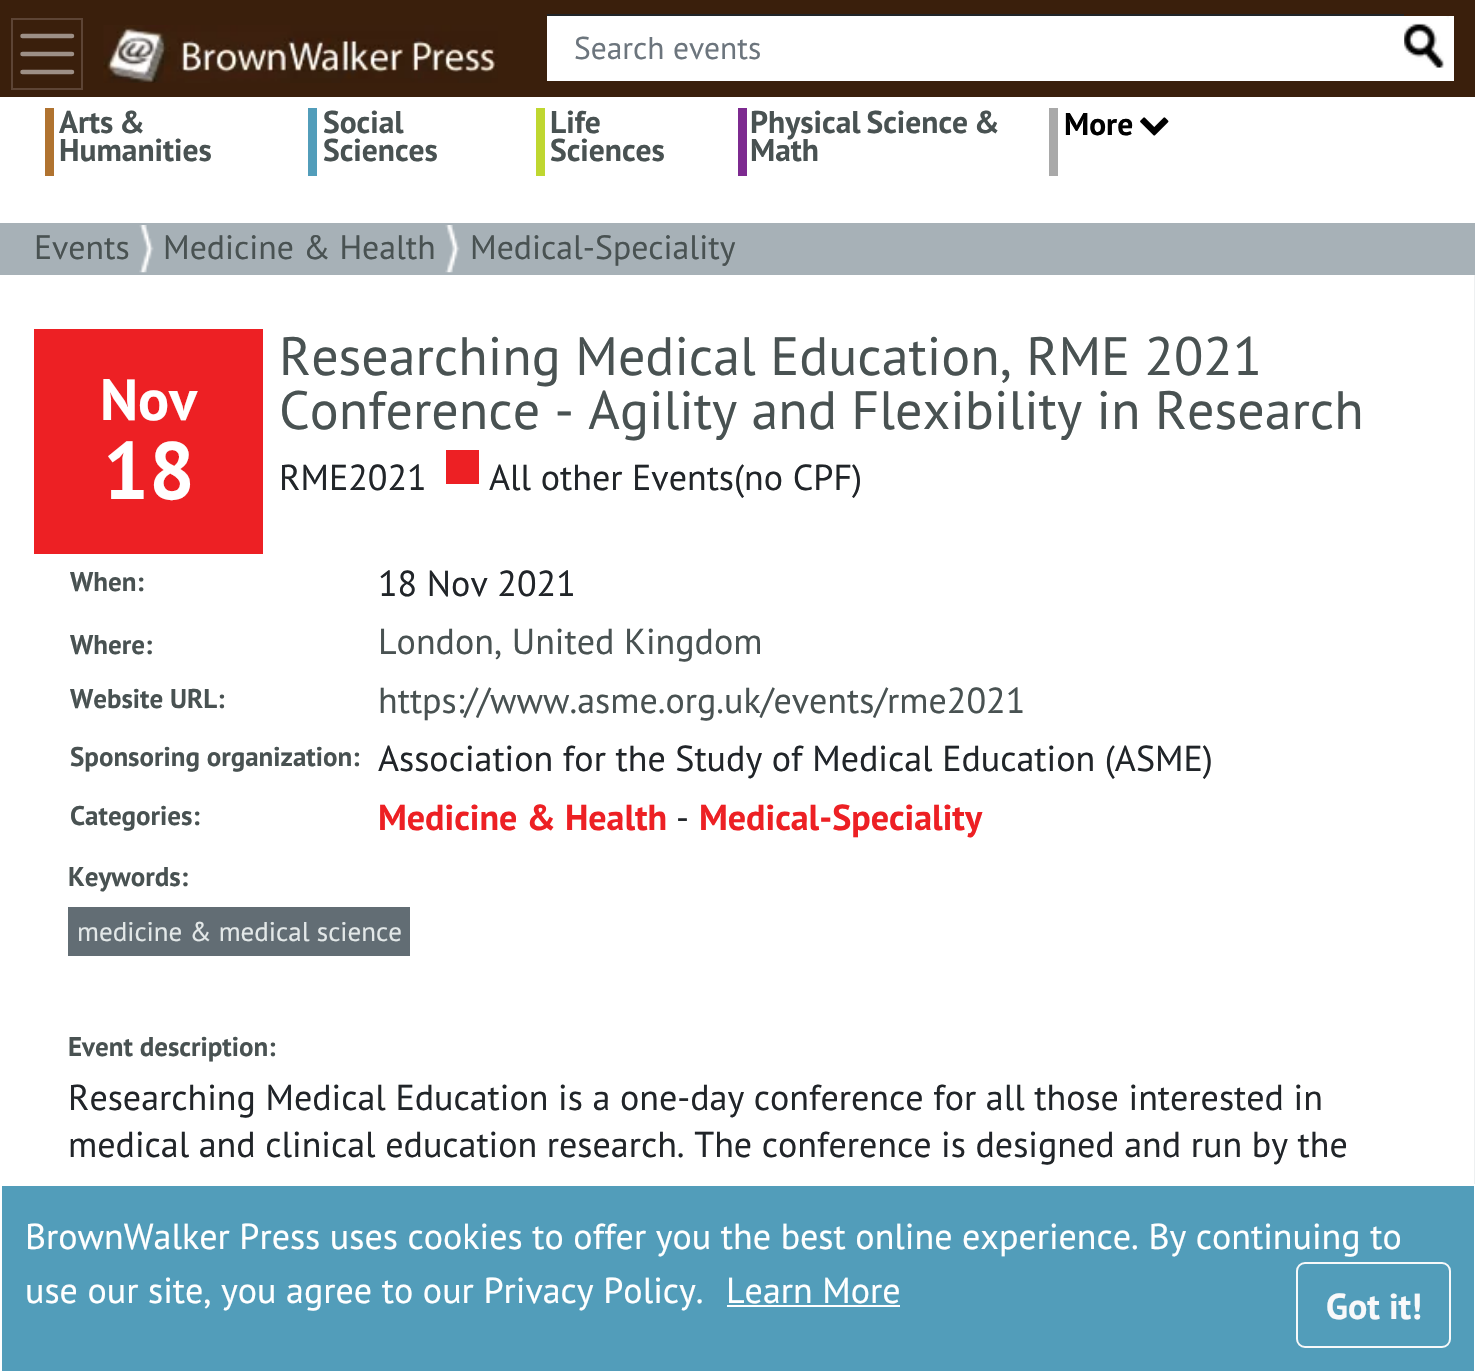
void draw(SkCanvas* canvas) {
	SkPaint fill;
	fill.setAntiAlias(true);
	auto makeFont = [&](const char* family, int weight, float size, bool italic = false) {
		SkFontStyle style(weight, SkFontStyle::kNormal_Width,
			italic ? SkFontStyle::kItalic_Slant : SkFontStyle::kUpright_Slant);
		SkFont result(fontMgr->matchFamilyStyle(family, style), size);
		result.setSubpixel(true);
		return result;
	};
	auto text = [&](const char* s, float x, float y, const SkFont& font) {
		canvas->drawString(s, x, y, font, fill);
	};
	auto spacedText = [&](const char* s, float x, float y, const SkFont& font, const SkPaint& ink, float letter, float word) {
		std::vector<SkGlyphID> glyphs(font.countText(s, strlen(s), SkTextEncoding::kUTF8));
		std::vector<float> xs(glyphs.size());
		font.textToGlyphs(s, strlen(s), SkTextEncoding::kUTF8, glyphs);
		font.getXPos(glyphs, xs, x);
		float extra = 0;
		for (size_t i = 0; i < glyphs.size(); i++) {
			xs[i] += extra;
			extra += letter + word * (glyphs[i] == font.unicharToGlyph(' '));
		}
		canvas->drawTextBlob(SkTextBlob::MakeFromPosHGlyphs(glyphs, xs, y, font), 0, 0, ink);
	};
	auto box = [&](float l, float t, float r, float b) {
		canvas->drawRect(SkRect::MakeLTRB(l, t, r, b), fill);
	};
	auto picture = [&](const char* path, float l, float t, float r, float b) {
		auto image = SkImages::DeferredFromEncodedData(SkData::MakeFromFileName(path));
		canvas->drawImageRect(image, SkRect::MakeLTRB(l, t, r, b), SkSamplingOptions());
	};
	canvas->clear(0xFFFFFFFF);
	fill.setColor(0xFF3A1F0C);
	box(0, 0, 1475, 97);
	fill.setStyle(SkPaint::kStroke_Style);
	fill.setStrokeWidth(2);
	fill.setColor(0xFF5D4435);
	canvas->drawRect(SkRect::MakeLTRB(12, 19, 82, 89), fill);
	fill.setStrokeWidth(4.5f);
	fill.setStrokeCap(SkPaint::kRound_Cap);
	fill.setColor(0xFF9D8F86);
	canvas->drawPath(SkPathBuilder().moveTo(22.5f, 36).lineTo(72, 36).moveTo(22.5f, 54).lineTo(72, 54).moveTo(22.5f, 72).lineTo(72, 72).detach(), fill);
	picture("image0.png", 103, 25, 498, 83);
	fill.setStyle(SkPaint::kFill_Style);
	fill.setColor(0xFFFFFFFF);
	box(547, 16, 1454, 81);
	fill.setColor(0xFF212529);
	box(547, 14, 1404, 16);
	picture("image1.png", 1404, 16, 1449, 68);
	fill.setColor(0xFFB07330);
	box(45, 108, 54, 176);
	fill.setColor(0xFF529DBA);
	box(308, 108, 317, 176);
	fill.setColor(0xFFBFD730);
	box(536, 108, 545, 176);
	fill.setColor(0xFF7D2A90);
	box(738, 108, 747, 176);
	fill.setColor(0xFFA9A9A9);
	box(1049, 108, 1058, 176);
	picture("image2.png", 1140, 117, 1169, 136);
	fill.setColor(0xFFA7B1B7);
	box(0, 223, 1475, 275);
	picture("image3.png", 139, 225, 154, 273);
	picture("image4.png", 445, 225, 460, 273);
	fill.setColor(0xFFEEF0F1);
	box(1474, 275, 1475, 1184);
	fill.setColor(0xFFED2024);
	box(34, 329, 263, 554);
	box(446, 450, 479, 484);
	fill.setColor(0xFF626D74);
	box(68, 907, 410, 956);
	fill.setColor(0xFF529DBA);
	box(2, 1186, 1474, 1371);
	fill.setColor(0xFFFFFFFF);
	box(727, 1305, 900, 1307);
	fill.setStyle(SkPaint::kStroke_Style);
	fill.setStrokeWidth(2);
	fill.setStrokeCap(SkPaint::kButt_Cap);
	fill.setColor(0xFFF8F9FA);
	canvas->drawRoundRect(SkRect::MakeLTRB(1297, 1263, 1450, 1347), 8, 8, fill);
	auto font1 = makeFont("PT Sans", 400, 31.5f);
	fill.setStyle(SkPaint::kFill_Style);
	fill.setColor(0xFF6C757D);
	text("Search events", 574, 59, font1);
	auto font2 = makeFont("PT Sans", 700, 31.5f);
	fill.setColor(0xFF495252);
	spacedText("Arts &", 59, 133, font2, fill, 0, -2);
	text("Humanities", 59, 161, font2);
	text("Social", 323, 133, font2);
	text("Sciences", 323, 161, font2);
	text("Life", 550, 133, font2);
	text("Sciences", 550, 161, font2);
	spacedText("Physical Science &", 750, 133, font2, fill, 0, -2);
	text("Math", 750, 161, font2);
	fill.setColor(0xFF000000);
	text("More", 1064, 135, font2);
	auto font3 = makeFont("PT Sans", 400, 33.75f);
	fill.setColor(0xFF495252);
	text("Events", 34, 259, font3);
	text("Medicine & Health", 163, 259, font3);
	text("Medical-Speciality", 470, 259, font3);
	auto font4 = makeFont("PT Sans", 700, 58);
	fill.setColor(0xFFFFFFFF);
	text("Nov", 100, 420, font4);
	auto font5 = makeFont("PT Sans", 700, 81);
	text("18", 103, 499, font5);
	auto font6 = makeFont("PT Sans", 400, 54);
	fill.setColor(0xFF495252);
	text("Researching Medical Education, RME 2021", 279, 375, font6);
	text("Conference - Agility and Flexibility in Research", 279, 429, font6);
	auto font7 = makeFont("PT Sans", 400, 36);
	fill.setColor(0xFF212529);
	text("RME2021", 279, 490, font7);
	text("All other Events(no CPF)", 489, 490, font7);
	auto font8 = makeFont("PT Sans", 700, 27);
	fill.setColor(0xFF495252);
	text("When:", 70, 591, font8);
	fill.setColor(0xFF212529);
	text("18 Nov 2021", 378, 596, font7);
	fill.setColor(0xFF495252);
	text("Where:", 70, 654, font8);
	text("London, United Kingdom", 378, 654, font7);
	text("Website URL:", 70, 708, font8);
	text("https://www.asme.org.uk/events/rme2021", 378, 713, font7);
	text("Sponsoring organization:", 70, 766, font8);
	fill.setColor(0xFF212529);
	text("Association for the Study of Medical Education (ASME)", 378, 771, font7);
	fill.setColor(0xFF495252);
	text("Categories:", 70, 825, font8);
	auto font9 = makeFont("PT Sans", 700, 36);
	fill.setColor(0xFFED2024);
	text("Medicine & Health", 378, 830, font9);
	fill.setColor(0xFF212529);
	text("-", 676, 830, font7);
	fill.setColor(0xFFED2024);
	text("Medical-Speciality", 699, 830, font9);
	fill.setColor(0xFF495252);
	text("Keywords:", 68, 886, font8);
	auto font10 = makeFont("PT Sans", 400, 27);
	fill.setColor(0xFFE3E8E8);
	text("medicine & medical science", 77, 941, font10);
	fill.setColor(0xFF495252);
	text("Event description:", 68, 1056, font8);
	fill.setColor(0xFF212529);
	text("Researching Medical Education is a one-day conference for all those interested in", 68, 1110, font7);
	text("medical and clinical education research. The conference is designed and run by the", 68, 1157, font7);
	fill.setColor(0xFFFFFFFF);
	text("BrownWalker Press uses cookies to offer you the best online experience. By continuing to", 25, 1249, font7);
	text("use our site, you agree to our Privacy Policy.", 25, 1303, font7);
	text("Learn More", 726, 1303, font7);
	fill.setColor(0xFFF8F9FA);
	text("Got it!", 1326, 1319, font9);
}
